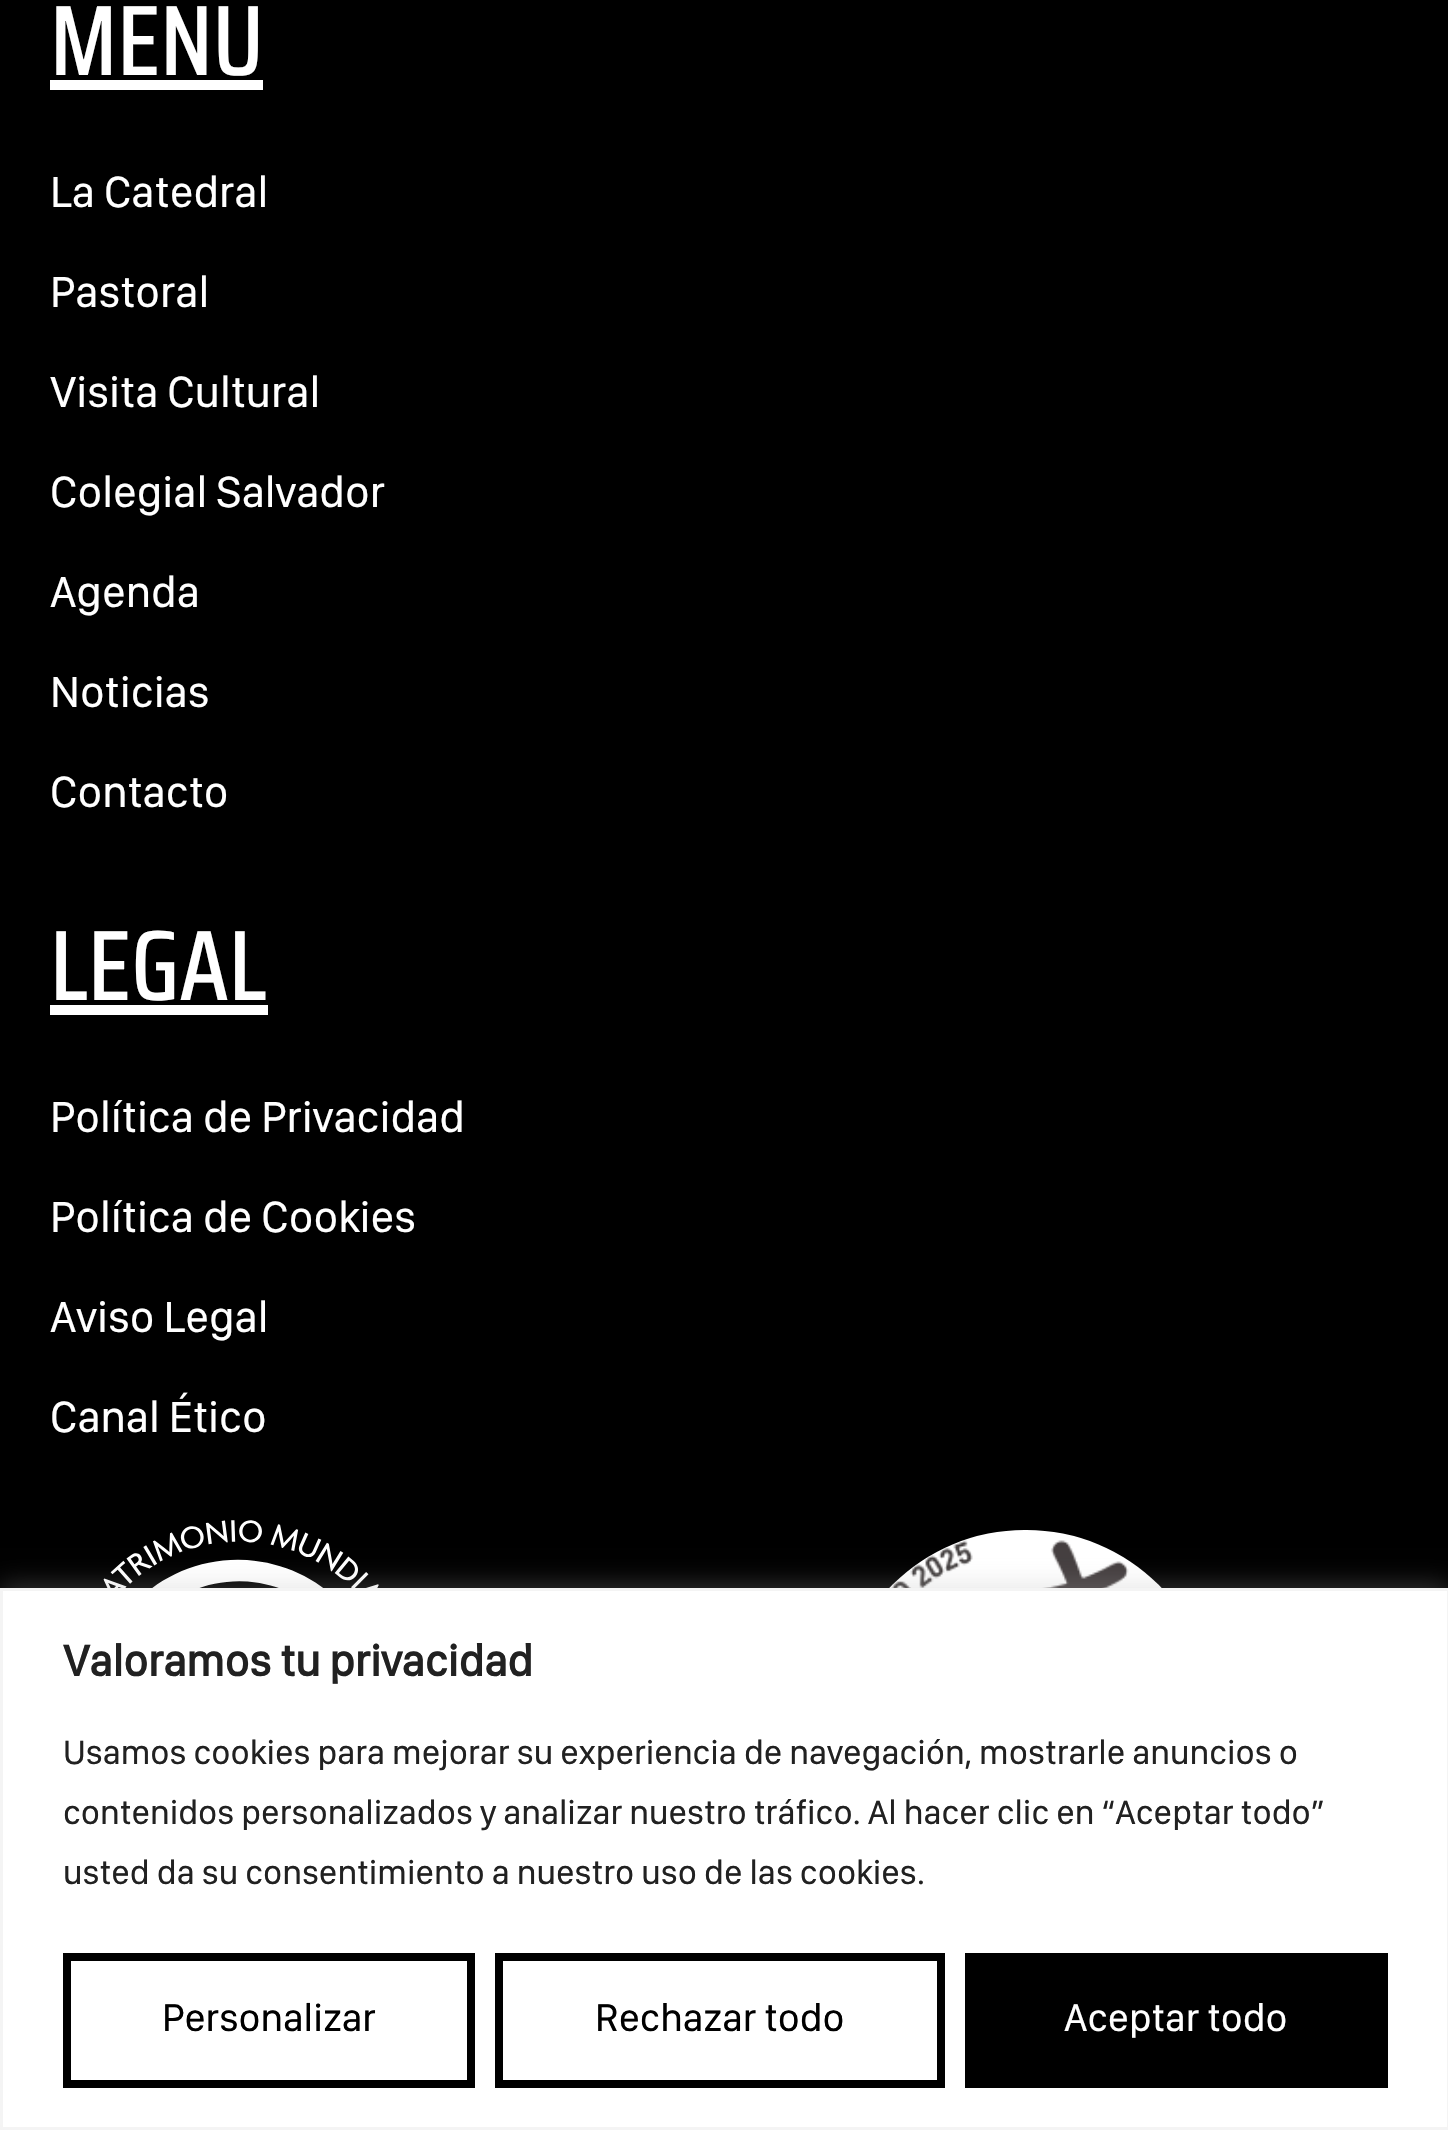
void draw(SkCanvas* canvas) {
	SkPaint fill;
	fill.setAntiAlias(true);
	auto makeFont = [&](const char* family, int weight, float size, bool italic = false) {
		SkFontStyle style(weight, SkFontStyle::kNormal_Width,
			italic ? SkFontStyle::kItalic_Slant : SkFontStyle::kUpright_Slant);
		SkFont result(fontMgr->matchFamilyStyle(family, style), size);
		result.setSubpixel(true);
		return result;
	};
	auto text = [&](const char* s, float x, float y, const SkFont& font) {
		canvas->drawString(s, x, y, font, fill);
	};
	auto box = [&](float l, float t, float r, float b) {
		canvas->drawRect(SkRect::MakeLTRB(l, t, r, b), fill);
	};
	auto roundBox = [&](float l, float t, float r, float b, float radius) {
		canvas->drawRoundRect(SkRect::MakeLTRB(l, t, r, b), radius, radius, fill);
	};
	auto picture = [&](const char* path, float l, float t, float r, float b) {
		auto image = SkImages::DeferredFromEncodedData(SkData::MakeFromFileName(path));
		canvas->drawImageRect(image, SkRect::MakeLTRB(l, t, r, b), SkSamplingOptions());
	};
	canvas->clear(0xFF000000);
	fill.setColor(0xFFFFFFFF);
	box(50, 80, 263, 90);
	box(50, 1005, 268, 1015);
	picture("image0.png", 103, 1520, 379, 1588);
	roundBox(838, 1530, 1213, 1903, 186.5f);
	picture("image1.png", 891, 1540, 1129, 1588);
	fill.setColor(0x4DACABAB);
	fill.setMaskFilter(SkMaskFilter::MakeBlur(kNormal_SkBlurStyle, 12.5f));
	canvas->drawRect(SkRect::MakeLTRB(0, 1585, 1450, 2128), fill);
	fill.setMaskFilter(nullptr);
	fill.setColor(0xFFFFFFFF);
	canvas->drawRect(SkRect::MakeLTRB(1.5f, 1589.5f, 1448.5f, 2128.5f), fill);
	fill.setStyle(SkPaint::kStroke_Style);
	fill.setStrokeWidth(3);
	fill.setColor(0xFFF4F4F4);
	canvas->drawRect(SkRect::MakeLTRB(1.5f, 1589.5f, 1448.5f, 2128.5f), fill);
	fill.setStrokeWidth(8);
	fill.setColor(0xFF000000);
	canvas->drawRect(SkRect::MakeLTRB(67, 1957, 471, 2084), fill);
	canvas->drawRect(SkRect::MakeLTRB(499, 1957, 941, 2084), fill);
	fill.setStyle(SkPaint::kFill_Style);
	box(965, 1953, 1388, 2088);
	auto font1 = makeFont("Saira Condensed", 500, 100);
	fill.setColor(0xFFFFFFFF);
	text("MENÚ", 50, 75, font1);
	auto font2 = makeFont("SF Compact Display", 400, 45);
	text("La Catedral", 50, 207, font2);
	text("Pastoral", 50, 307, font2);
	text("Visita Cultural", 50, 407, font2);
	text("Colegial Salvador", 50, 507, font2);
	text("Agenda", 50, 607, font2);
	text("Noticias", 50, 707, font2);
	text("Contacto", 50, 807, font2);
	text("LEGAL", 50, 1000, font1);
	text("Política de Privacidad", 50, 1132, font2);
	text("Política de Cookies", 50, 1232, font2);
	text("Aviso Legal", 50, 1332, font2);
	text("Canal Ético", 50, 1432, font2);
	auto font3 = makeFont("SF Compact Display", 700, 45);
	fill.setColor(0xFF212121);
	text("Valoramos tu privacidad", 63, 1676, font3);
	auto font4 = makeFont("SF Compact Display", 400, 35);
	text("Usamos cookies para mejorar su experiencia de navegación, mostrarle anuncios o", 63, 1764, font4);
	text("contenidos personalizados y analizar nuestro tráfico. Al hacer clic en “Aceptar todo”", 63, 1824, font4);
	text("usted da su consentimiento a nuestro uso de las cookies.", 63, 1884, font4);
	auto font5 = makeFont("SF Compact Display", 400, 40);
	fill.setColor(0xFF000000);
	text("Personalizar", 162, 2031, font5);
	text("Rechazar todo", 595, 2031, font5);
	fill.setColor(0xFFFFFFFF);
	text("Aceptar todo", 1064, 2031, font5);
}
